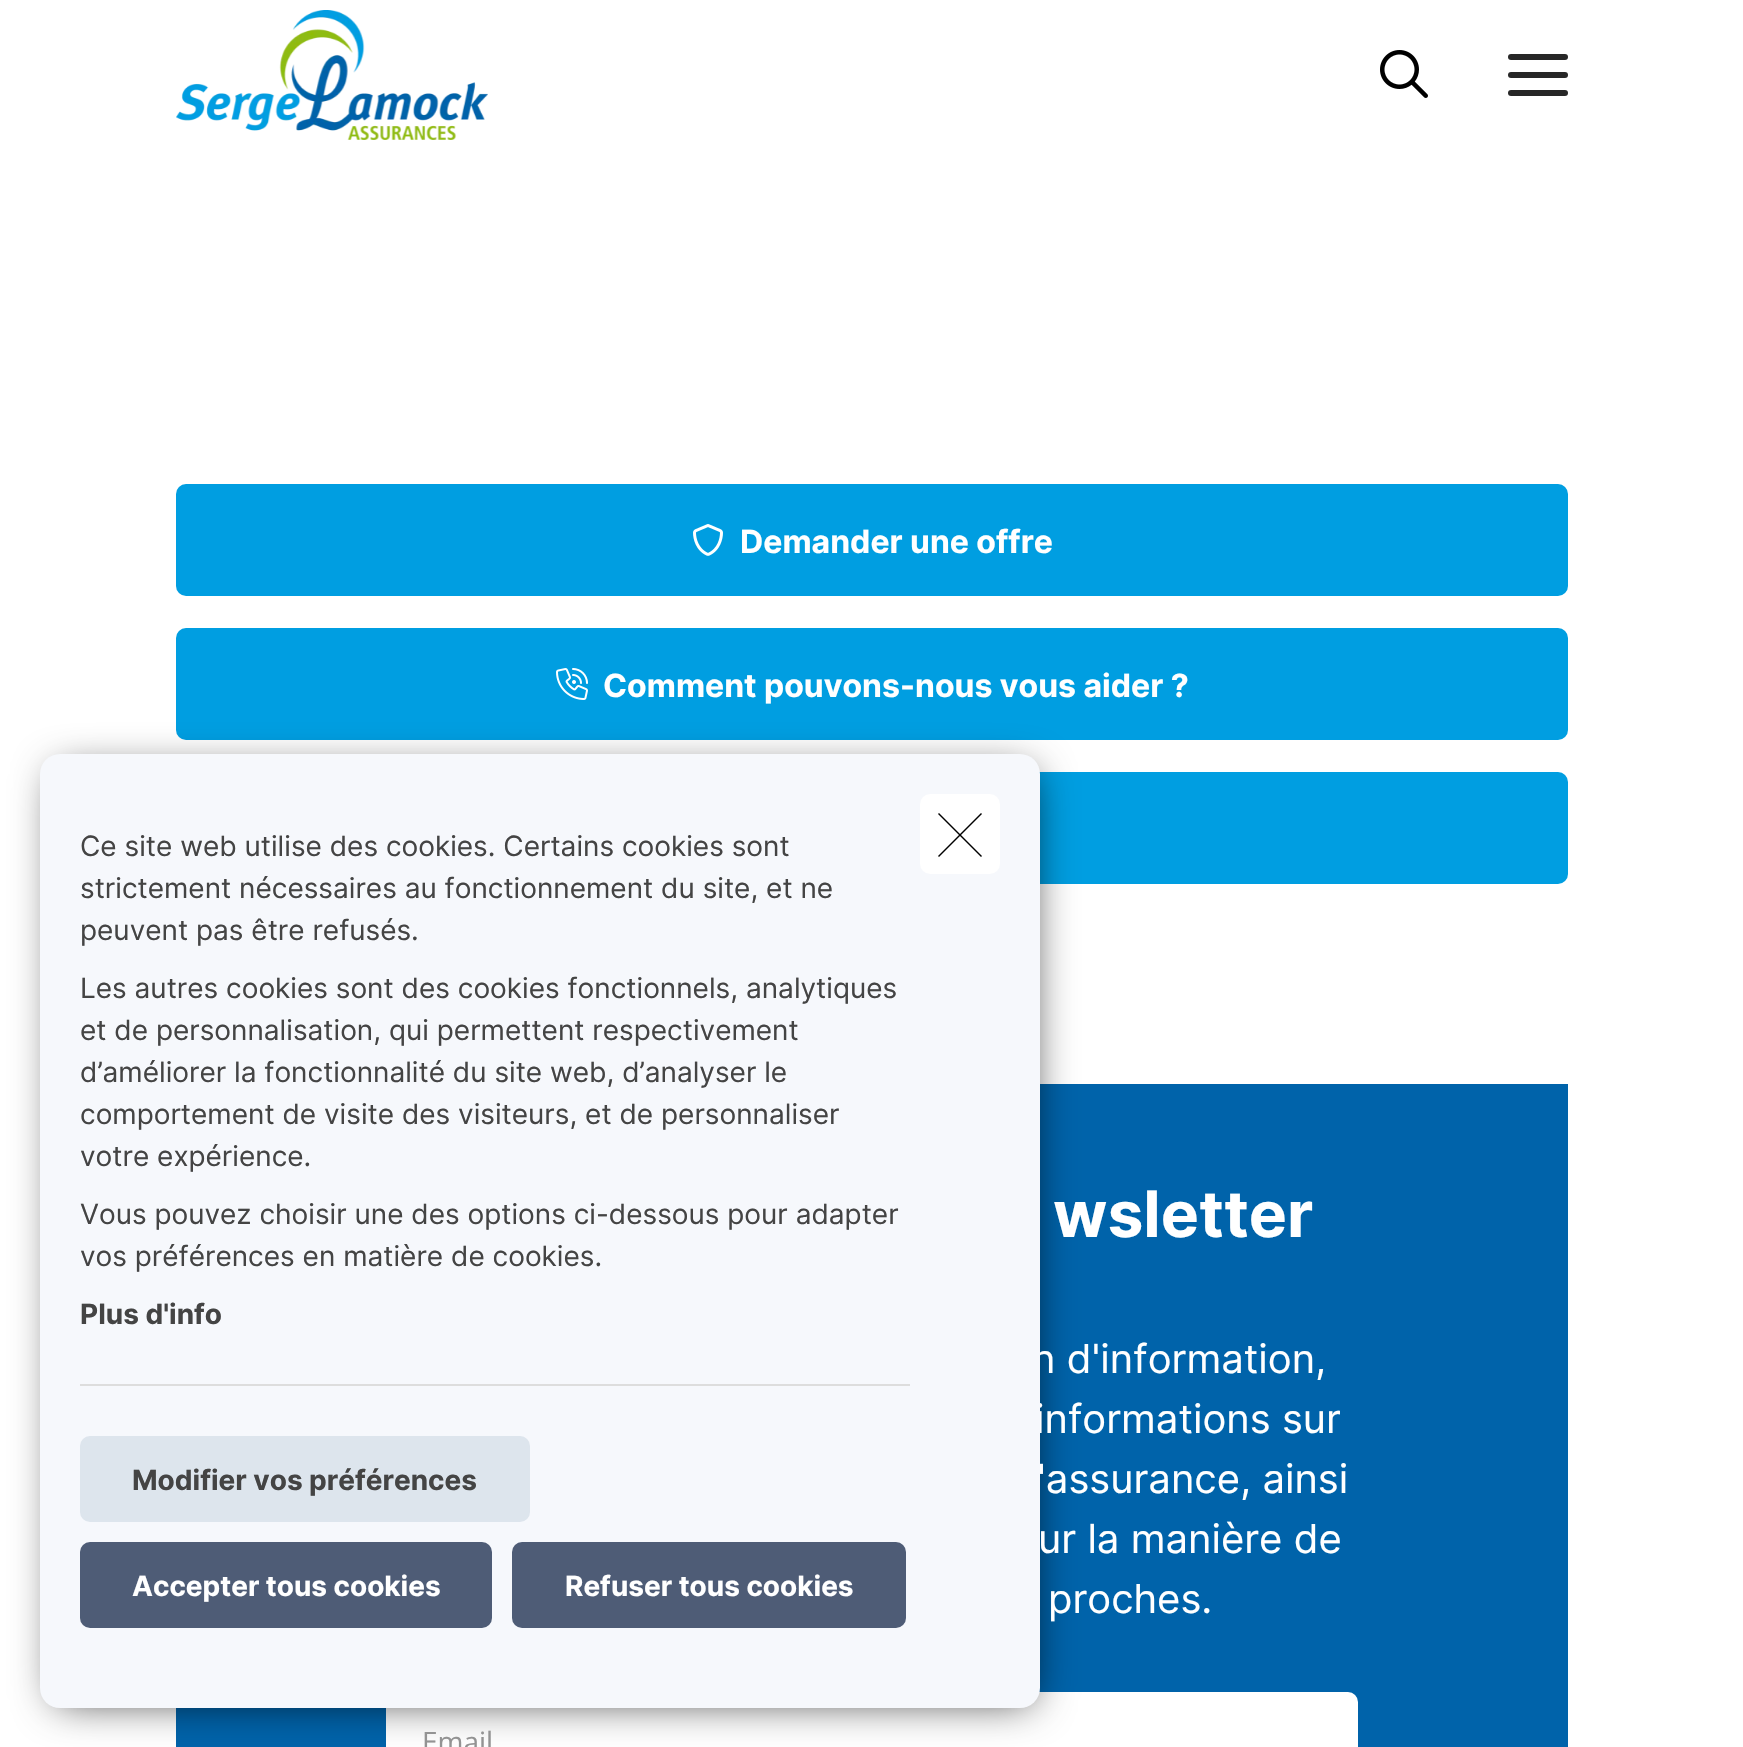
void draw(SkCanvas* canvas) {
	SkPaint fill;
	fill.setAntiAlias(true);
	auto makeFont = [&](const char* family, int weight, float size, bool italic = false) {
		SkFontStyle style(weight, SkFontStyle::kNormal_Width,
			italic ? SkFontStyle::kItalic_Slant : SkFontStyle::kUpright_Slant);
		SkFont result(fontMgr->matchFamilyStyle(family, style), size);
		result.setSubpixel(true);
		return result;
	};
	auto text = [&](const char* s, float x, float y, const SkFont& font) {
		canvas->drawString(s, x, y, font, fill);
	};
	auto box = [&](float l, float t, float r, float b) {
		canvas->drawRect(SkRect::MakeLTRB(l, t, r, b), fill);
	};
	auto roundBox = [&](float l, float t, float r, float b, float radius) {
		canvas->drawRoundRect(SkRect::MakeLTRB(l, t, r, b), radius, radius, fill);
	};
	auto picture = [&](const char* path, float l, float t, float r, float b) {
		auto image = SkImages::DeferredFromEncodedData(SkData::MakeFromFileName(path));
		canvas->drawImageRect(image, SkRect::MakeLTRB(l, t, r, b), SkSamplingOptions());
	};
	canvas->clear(0xFFFFFFFF);
	picture("image0.png", 176, 10, 488, 140);
	picture("image1.png", 1380, 50, 1428, 98);
	fill.setColor(0xFF272727);
	roundBox(1508, 72, 1568, 78, 3);
	roundBox(1508, 54, 1568, 60, 3);
	roundBox(1508, 90, 1568, 96, 3);
	fill.setColor(0xFF009EE1);
	roundBox(176, 484, 1568, 596, 10);
	picture("image2.png", 693, 524, 723, 556);
	roundBox(176, 628, 1568, 740, 10);
	picture("image3.png", 556, 668, 588, 700);
	roundBox(176, 772, 1568, 884, 10);
	fill.setColor(0xFF0063AA);
	box(176, 1084, 1568, 1747);
	fill.setColor(0xFFFFFFFF);
	roundBox(386, 1692, 1358, 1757, 10);
	fill.setColor(0xBF000000);
	fill.setMaskFilter(SkMaskFilter::MakeBlur(kNormal_SkBlurStyle, 21));
	canvas->drawRoundRect(SkRect::MakeLTRB(56, 772, 1032, 1702), 8, 8, fill);
	fill.setMaskFilter(nullptr);
	auto font1 = makeFont("Inter", 700, 32);
	fill.setColor(0xFFFFFFFF);
	text("Demander une offre", 740, 553, font1);
	text("Comment pouvons-nous vous aider ?", 603, 697, font1);
	auto font2 = makeFont("Inter", 700, 64);
	text("wsletter", 1053, 1237, font2);
	auto font3 = makeFont("Inter", 400, 40);
	text("n d'information,", 1032, 1373, font3);
	text("informations sur", 1035, 1433, font3);
	text("'assurance, ainsi", 1037, 1493, font3);
	text("ur la manière de", 1038, 1553, font3);
	text("proches.", 1048, 1613, font3);
	auto font4 = makeFont("Open Sans", 400, 28);
	fill.setColor(0xFF939393);
	text("Email", 422, 1752, font4);
	fill.setColor(0xFFF6F8FC);
	roundBox(40, 754, 1040, 1708, 20);
	fill.setColor(0xFFDDDDDD);
	box(80, 1384, 910, 1386);
	auto font5 = makeFont("Inter", 400, 28);
	fill.setColor(0xFF444444);
	text("Ce site web utilise des cookies. Certains cookies sont", 80, 856, font5);
	text("strictement nécessaires au fonctionnement du site, et ne", 80, 898, font5);
	text("peuvent pas être refusés.", 80, 940, font5);
	text("Les autres cookies sont des cookies fonctionnels, analytiques", 80, 998, font5);
	text("et de personnalisation, qui permettent respectivement", 80, 1040, font5);
	text("d’améliorer la fonctionnalité du site web, d’analyser le", 80, 1082, font5);
	text("comportement de visite des visiteurs, et de personnaliser", 80, 1124, font5);
	text("votre expérience.", 80, 1166, font5);
	text("Vous pouvez choisir une des options ci-dessous pour adapter", 80, 1224, font5);
	text("vos préférences en matière de cookies.", 80, 1266, font5);
	auto font6 = makeFont("Inter", 700, 28);
	text("Plus d'info", 80, 1324, font6);
	fill.setColor(0xFFDDE5ED);
	roundBox(80, 1436, 530, 1522, 10);
	fill.setColor(0xFF444444);
	text("Modifier vos préférences", 132, 1490, font6);
	fill.setColor(0xFF4E5C76);
	roundBox(80, 1542, 492, 1628, 10);
	fill.setColor(0xFFFFFFFF);
	text("Accepter tous cookies", 132, 1596, font6);
	fill.setColor(0xFF4E5C76);
	roundBox(512, 1542, 906, 1628, 10);
	fill.setColor(0xFFFFFFFF);
	text("Refuser tous cookies", 565, 1596, font6);
	roundBox(920, 794, 1000, 874, 10);
	fill.setColor(0xFF000000);
	canvas->drawPath(SkPathBuilder().moveTo(939, 813).lineTo(982, 856).lineTo(981, 857).lineTo(938, 814).close().detach(), fill);
	canvas->drawPath(SkPathBuilder().moveTo(938, 856).lineTo(981, 813).lineTo(982, 814).lineTo(939, 857).close().detach(), fill);
}
